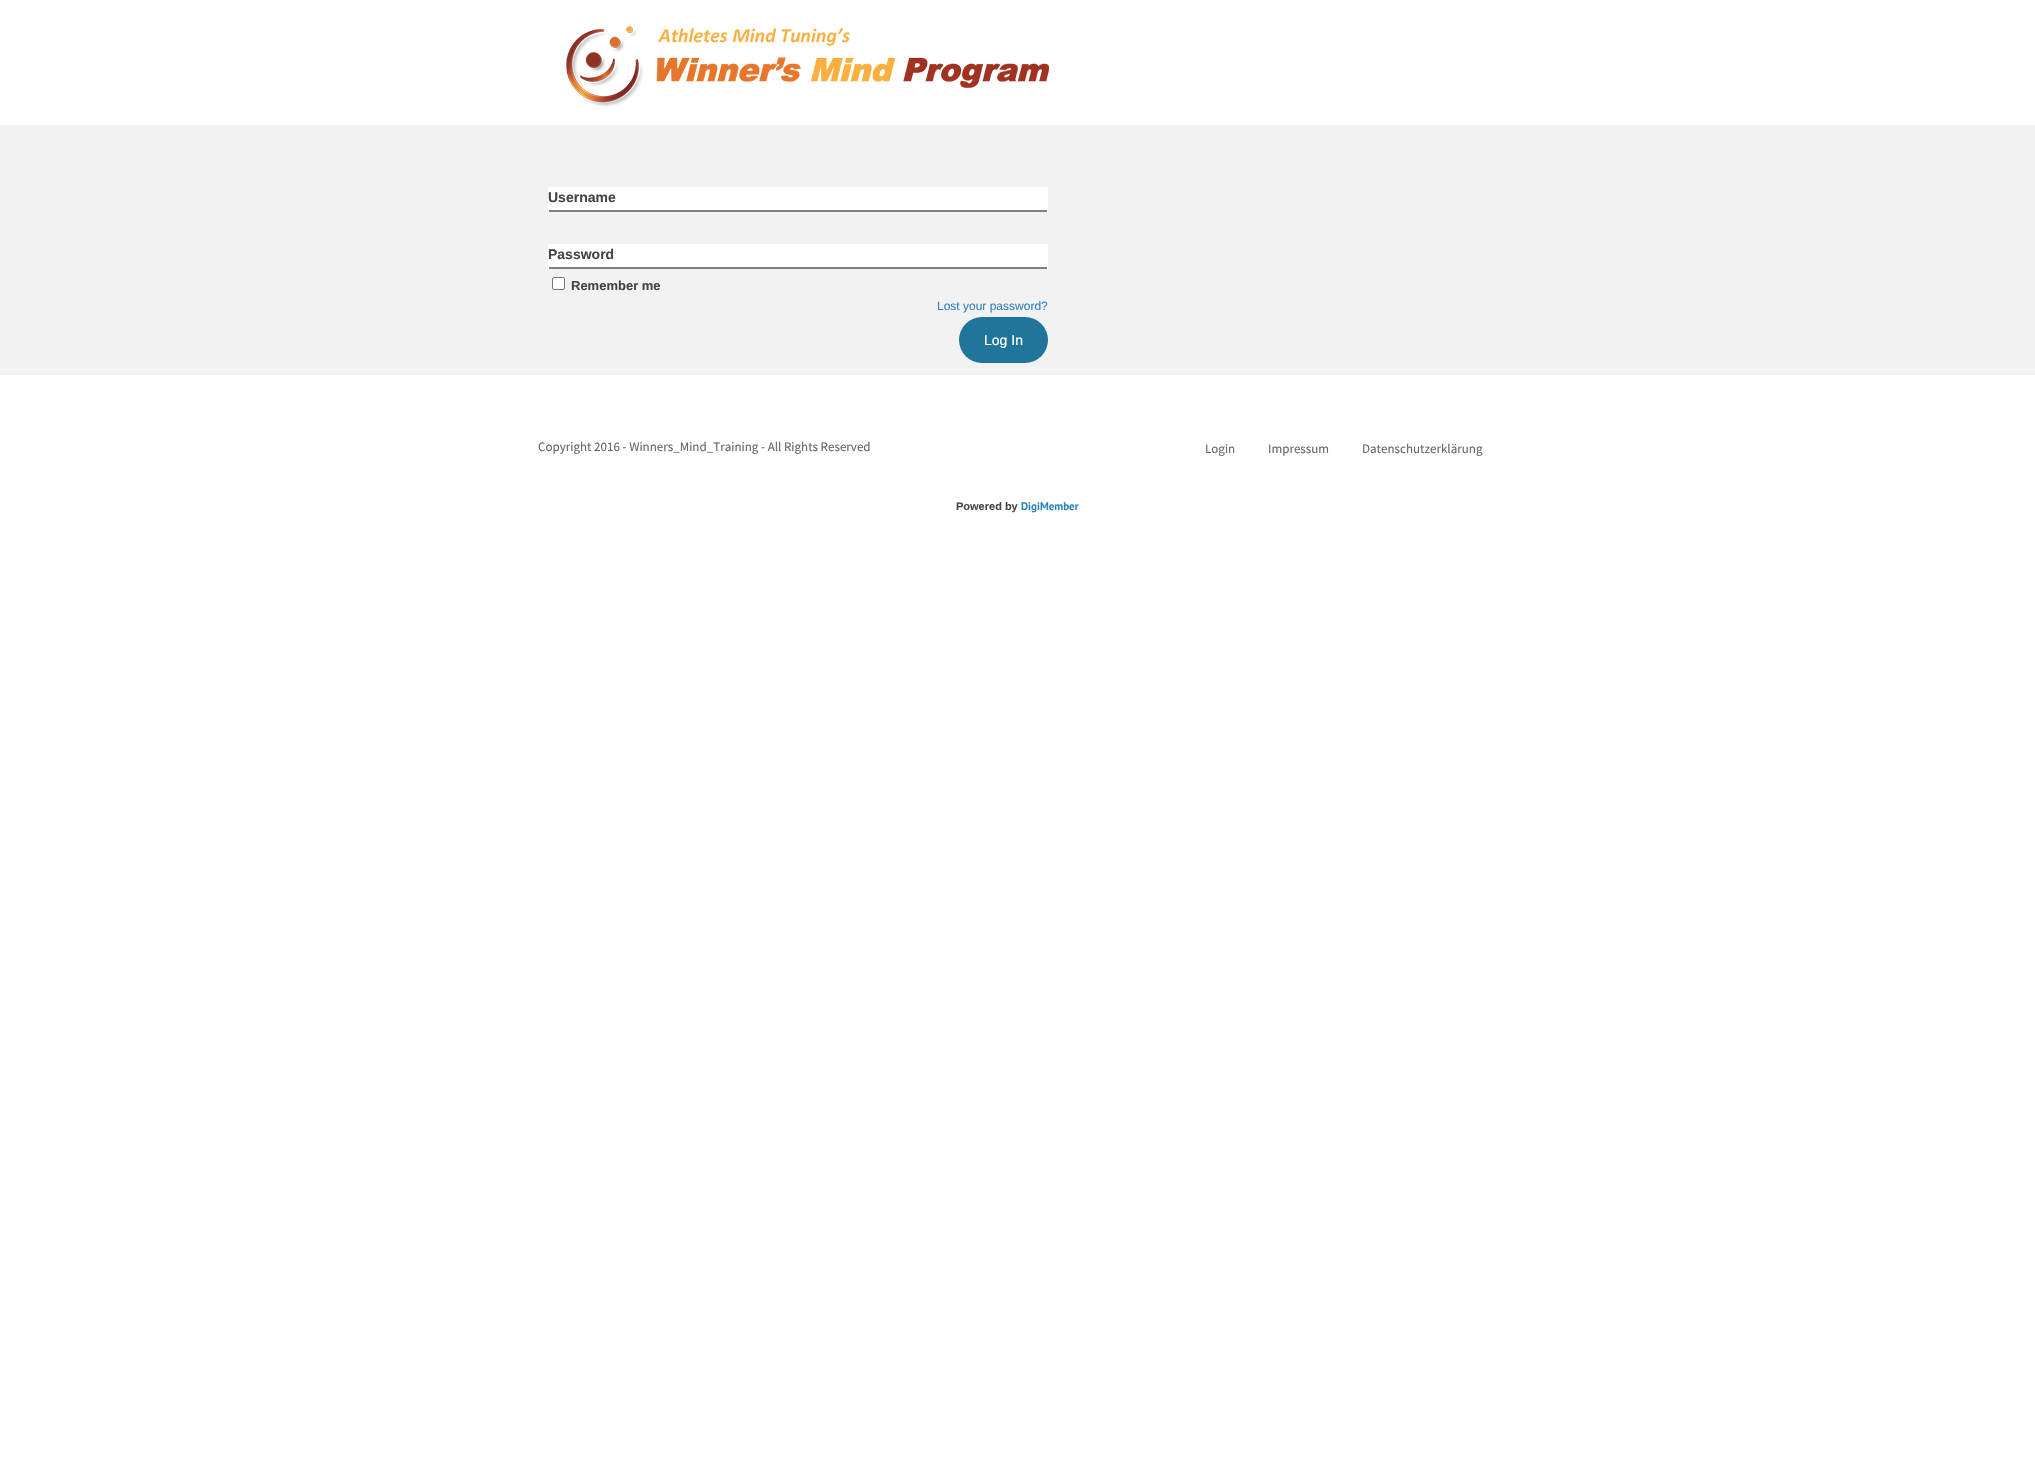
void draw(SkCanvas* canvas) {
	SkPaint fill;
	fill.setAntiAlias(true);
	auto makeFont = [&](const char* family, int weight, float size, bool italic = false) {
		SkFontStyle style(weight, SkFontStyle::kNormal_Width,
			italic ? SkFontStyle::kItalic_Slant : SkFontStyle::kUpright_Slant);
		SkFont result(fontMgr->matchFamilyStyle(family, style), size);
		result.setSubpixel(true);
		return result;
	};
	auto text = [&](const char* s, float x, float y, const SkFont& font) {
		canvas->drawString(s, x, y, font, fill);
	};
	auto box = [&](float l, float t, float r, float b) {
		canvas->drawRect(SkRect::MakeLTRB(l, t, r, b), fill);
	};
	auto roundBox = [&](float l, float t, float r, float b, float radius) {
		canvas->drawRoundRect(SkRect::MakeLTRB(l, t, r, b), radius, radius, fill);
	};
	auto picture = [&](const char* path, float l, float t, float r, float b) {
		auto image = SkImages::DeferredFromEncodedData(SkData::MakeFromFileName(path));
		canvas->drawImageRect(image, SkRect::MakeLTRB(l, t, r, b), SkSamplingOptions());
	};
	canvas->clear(0xFFFFFFFF);
	picture("image0.png", 566, 26, 1049, 107);
	fill.setColor(0xFFF2F2F2);
	box(0, 125, 2035, 375);
	fill.setColor(0xFFFFFFFF);
	roundBox(548, 187, 1048, 212, 2);
	fill.setColor(0xFF808080);
	box(549, 210, 1047, 212);
	fill.setColor(0xFFFFFFFF);
	roundBox(548, 244, 1048, 269, 2);
	fill.setColor(0xFF808080);
	box(549, 267, 1047, 269);
	fill.setColor(0xFFFFFFFF);
	canvas->drawRoundRect(SkRect::MakeLTRB(552.5f, 277.5f, 564.5f, 289.5f), 1.5f, 1.5f, fill);
	fill.setStyle(SkPaint::kStroke_Style);
	fill.setStrokeWidth(1);
	fill.setColor(0xFF767676);
	canvas->drawRoundRect(SkRect::MakeLTRB(552.5f, 277.5f, 564.5f, 289.5f), 1.5f, 1.5f, fill);
	fill.setStyle(SkPaint::kFill_Style);
	fill.setColor(0xFF21759B);
	roundBox(959, 317, 1048, 363, 23);
	auto font1 = makeFont("Liberation Sans", 700, 14);
	fill.setColor(0xFF444444);
	text("Username", 548, 202, font1);
	text("Password", 548, 259, font1);
	auto font2 = makeFont("Liberation Sans", 700, 13);
	text("Remember me", 571, 290, font2);
	auto font3 = makeFont("Liberation Sans", 400, 12);
	fill.setColor(0xFF2E82BC);
	text("Lost your password?", 937, 310, font3);
	auto font4 = makeFont("Liberation Sans", 400, 14);
	fill.setColor(0xFFFFFFFF);
	text("Log In", 984, 345, font4);
	auto font5 = makeFont("Source Sans Pro", 400, 13);
	fill.setColor(0xFF666666);
	text("Copyright 2016 - Winners_Mind_Training - All Rights Reserved", 538, 451, font5);
	text("Login", 1205, 453, font5);
	text("Impressum", 1268, 453, font5);
	text("Datenschutzerklärung", 1362, 453, font5);
	auto font6 = makeFont("Liberation Sans", 700, 11);
	fill.setColor(0xFF444444);
	text("Powered by", 956, 510, font6);
	auto font7 = makeFont("PT Sans", 700, 11);
	fill.setColor(0xFF2E82BC);
	text("DigiMember", 1021, 510, font7);
}
